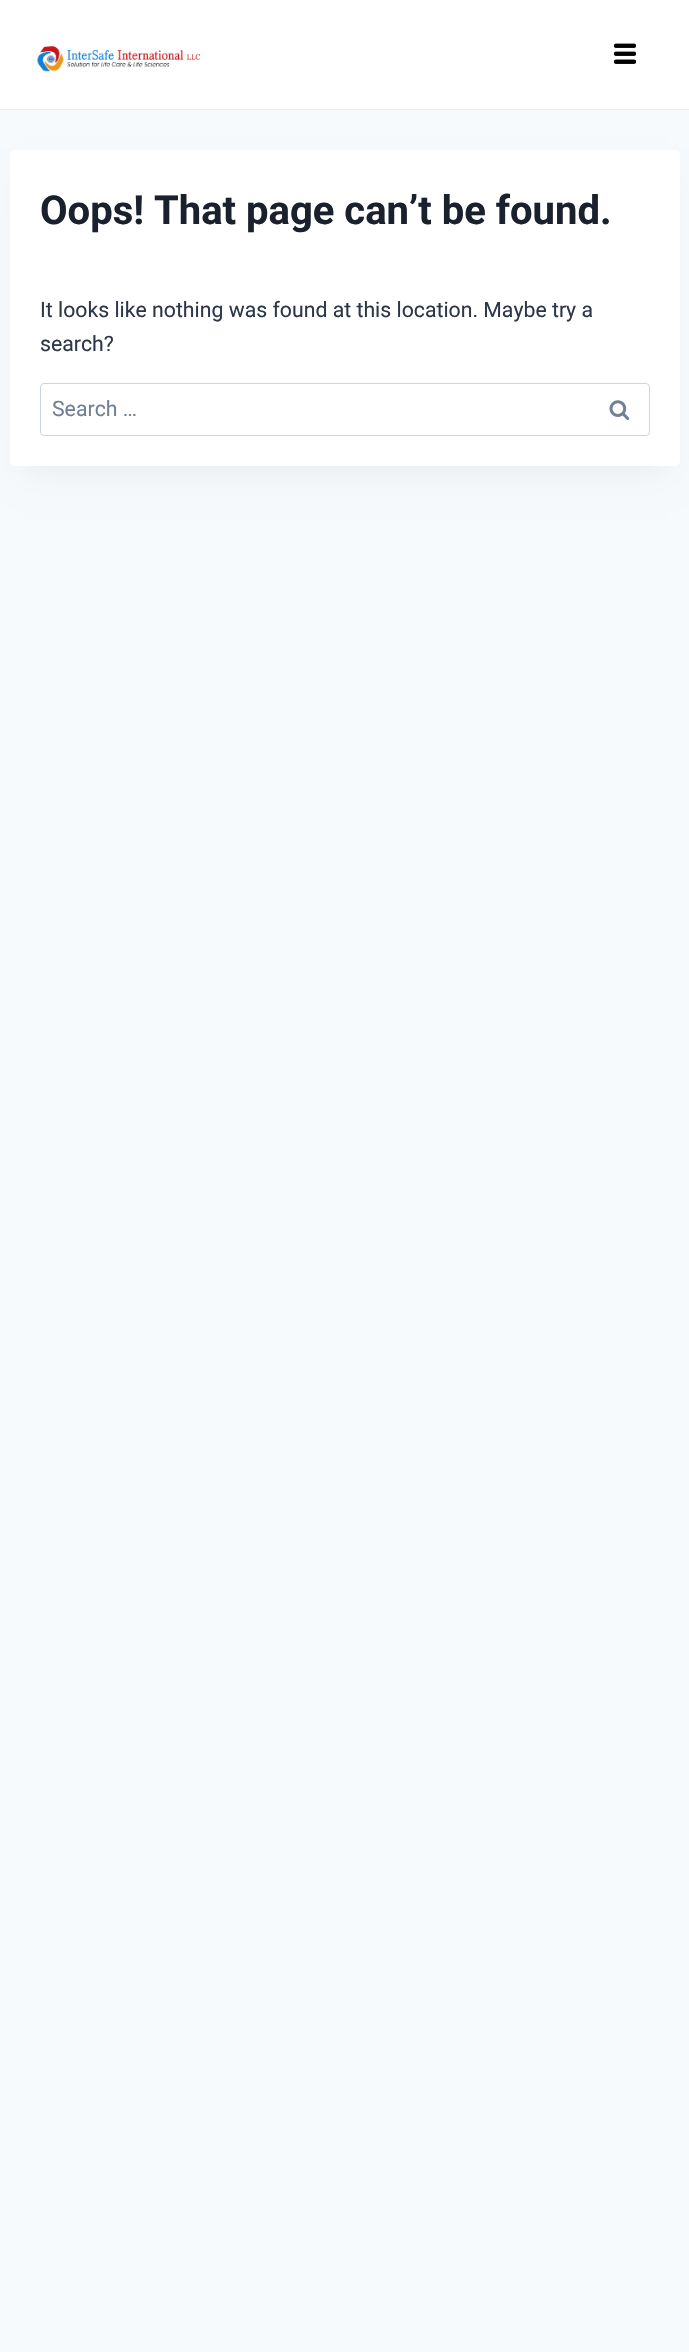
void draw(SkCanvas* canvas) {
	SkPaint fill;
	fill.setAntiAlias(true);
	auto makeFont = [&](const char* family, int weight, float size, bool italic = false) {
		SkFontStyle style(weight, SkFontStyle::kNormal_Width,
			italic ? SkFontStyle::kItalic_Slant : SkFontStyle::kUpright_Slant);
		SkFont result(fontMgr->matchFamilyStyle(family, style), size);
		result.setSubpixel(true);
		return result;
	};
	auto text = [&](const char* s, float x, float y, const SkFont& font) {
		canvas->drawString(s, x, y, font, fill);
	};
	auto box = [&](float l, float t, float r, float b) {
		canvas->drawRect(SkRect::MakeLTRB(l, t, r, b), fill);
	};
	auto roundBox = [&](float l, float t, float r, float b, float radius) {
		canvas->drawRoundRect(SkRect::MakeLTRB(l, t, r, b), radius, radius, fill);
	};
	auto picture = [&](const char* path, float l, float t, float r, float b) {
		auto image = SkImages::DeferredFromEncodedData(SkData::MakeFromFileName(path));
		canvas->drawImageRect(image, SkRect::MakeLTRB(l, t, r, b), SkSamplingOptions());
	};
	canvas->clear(0xFFF7FAFC);
	fill.setColor(0xFFFFFFFF);
	box(0, 0, 689, 109);
	fill.setColor(0xFFEEEEEE);
	box(0, 109, 689, 110);
	picture("image0.png", 37, 46, 200, 72);
	picture("image1.png", 614, 43, 636, 64);
	fill.setColor(0x0D000000);
	fill.setMaskFilter(SkMaskFilter::MakeBlur(kNormal_SkBlurStyle, 15.5f));
	canvas->drawRect(SkRect::MakeLTRB(23, 181, 668, 473), fill);
	fill.setMaskFilter(nullptr);
	fill.setColor(0xFFFFFFFF);
	roundBox(10, 150, 680, 466, 5);
	fill.setStyle(SkPaint::kStroke_Style);
	fill.setStrokeWidth(1);
	fill.setColor(0xFFCBD5E0);
	canvas->drawRoundRect(SkRect::MakeLTRB(40.5f, 383.5f, 649.5f, 435.5f), 3.5f, 3.5f, fill);
	picture("image2.png", 609, 400, 630, 420);
	auto font1 = makeFont("Roboto", 700, 40);
	fill.setStyle(SkPaint::kFill_Style);
	fill.setColor(0xFF1A202C);
	text("Oops! That page can’t be found.", 40, 224, font1);
	auto font2 = makeFont("Roboto", 400, 21.25f);
	fill.setColor(0xFF2D3748);
	text("It looks like nothing was found at this location. Maybe try a", 40, 317, font2);
	text("search?", 40, 351, font2);
	fill.setColor(0xFF718096);
	text("Search …", 52, 416, font2);
}
